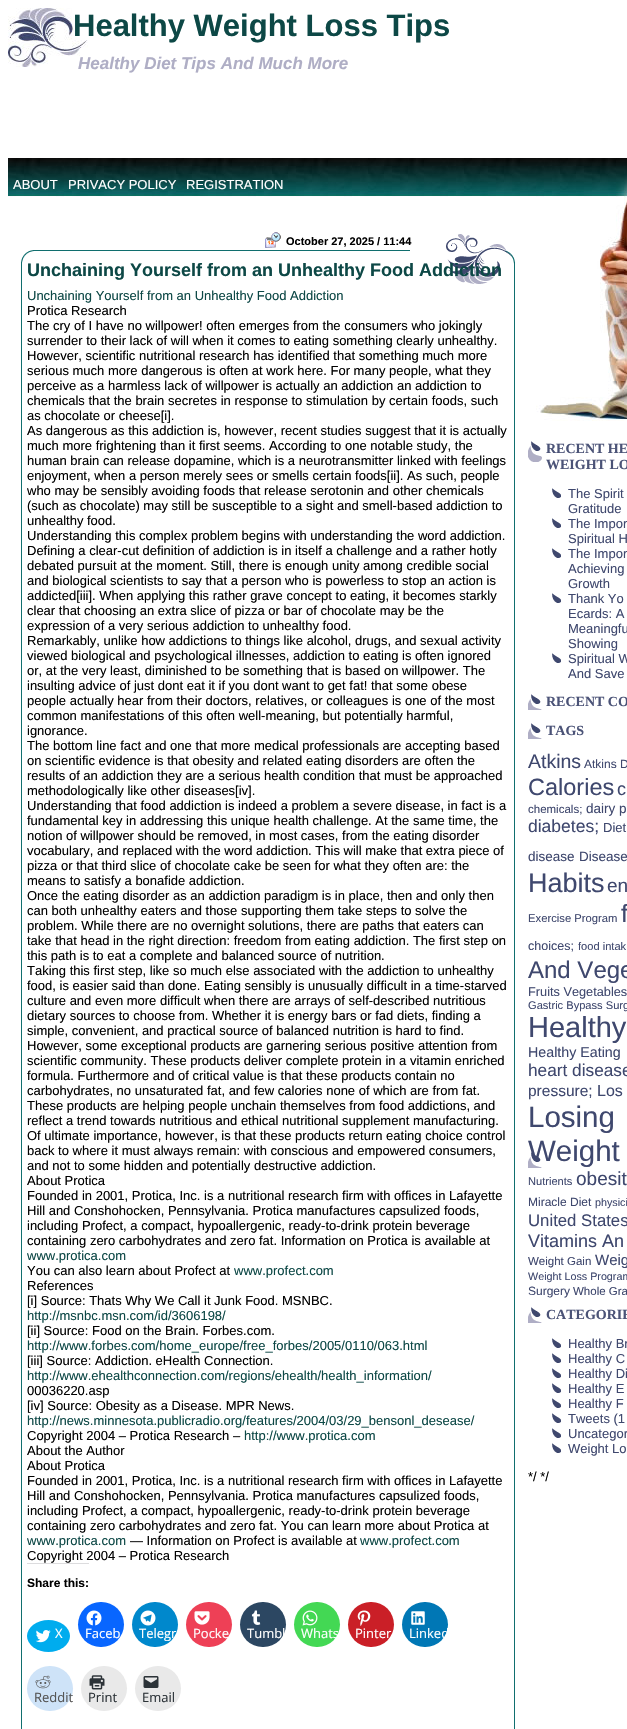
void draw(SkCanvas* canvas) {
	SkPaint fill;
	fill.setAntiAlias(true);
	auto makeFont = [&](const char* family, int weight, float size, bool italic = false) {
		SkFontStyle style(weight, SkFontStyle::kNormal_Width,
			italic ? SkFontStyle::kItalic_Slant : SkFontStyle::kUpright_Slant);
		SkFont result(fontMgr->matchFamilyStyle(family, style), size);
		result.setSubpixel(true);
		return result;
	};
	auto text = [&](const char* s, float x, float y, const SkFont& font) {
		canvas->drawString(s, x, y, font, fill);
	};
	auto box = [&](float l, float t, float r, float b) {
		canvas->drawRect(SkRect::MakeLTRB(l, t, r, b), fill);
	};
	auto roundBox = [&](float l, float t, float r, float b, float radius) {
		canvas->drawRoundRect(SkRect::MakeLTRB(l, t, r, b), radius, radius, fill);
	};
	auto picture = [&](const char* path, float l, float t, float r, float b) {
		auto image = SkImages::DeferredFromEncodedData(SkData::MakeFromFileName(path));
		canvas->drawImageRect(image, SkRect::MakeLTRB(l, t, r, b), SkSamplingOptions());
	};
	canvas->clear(0xFFFFFFFF);
	picture("image0.png", 8, 8, 88, 67);
	picture("image1.png", 8, 158, 627, 197);
	picture("image2.png", 21, 234, 515, 288);
	picture("image3.png", 265, 232, 281, 248);
	fill.setColor(0xFF116F6F);
	box(514, 288, 515, 1729);
	box(21, 288, 22, 1729);
	fill.setColor(0xFFDCDCDE);
	box(27, 1563, 89, 1564);
	fill.setColor(0xFF00ACEE);
	canvas->drawOval(SkRect::MakeLTRB(27, 1620, 70, 1652), fill);
	picture("image4.png", 35, 1630, 51, 1643);
	fill.setColor(0xFF0866FF);
	roundBox(78, 1602, 124, 1647, 22.5f);
	picture("image5.png", 86, 1610, 102, 1626);
	fill.setColor(0xFF0088CC);
	roundBox(132, 1602, 178, 1647, 22.5f);
	picture("image6.png", 140, 1610, 156, 1626);
	fill.setColor(0xFFEE4056);
	roundBox(186, 1602, 232, 1647, 22.5f);
	picture("image7.png", 194, 1611, 210, 1625);
	fill.setColor(0xFF2C4762);
	roundBox(240, 1602, 286, 1647, 22.5f);
	picture("image8.png", 251, 1610, 261, 1625);
	fill.setColor(0xFF43D854);
	roundBox(294, 1602, 340, 1647, 22.5f);
	picture("image9.png", 302, 1610, 318, 1626);
	fill.setColor(0xFFCA1F27);
	roundBox(348, 1602, 394, 1647, 22.5f);
	picture("image10.png", 357, 1610, 371, 1626);
	fill.setColor(0xFF0077B5);
	roundBox(402, 1602, 448, 1647, 22.5f);
	picture("image11.png", 411, 1611, 425, 1625);
	fill.setColor(0xFFCEE3F8);
	roundBox(27, 1666, 73, 1711, 22.5f);
	picture("image12.png", 35, 1675, 51, 1689);
	fill.setColor(0xFFE9E9E9);
	roundBox(81, 1666, 127, 1711, 22.5f);
	picture("image13.png", 89, 1675, 105, 1690);
	roundBox(135, 1666, 181, 1711, 22.5f);
	picture("image14.png", 143, 1676, 159, 1688);
	picture("image15.png", 536, 197, 627, 421);
	picture("image16.png", 528, 441, 542, 462);
	picture("image17.png", 552, 488, 561, 498);
	picture("image17.png", 552, 518, 561, 528);
	picture("image17.png", 552, 548, 561, 558);
	picture("image17.png", 552, 593, 561, 603);
	picture("image17.png", 552, 653, 561, 663);
	picture("image18.png", 528, 694, 542, 710);
	picture("image18.png", 528, 723, 542, 739);
	picture("image18.png", 528, 1307, 542, 1323);
	picture("image17.png", 552, 1338, 561, 1348);
	picture("image17.png", 552, 1353, 561, 1363);
	picture("image17.png", 552, 1368, 561, 1378);
	picture("image17.png", 552, 1383, 561, 1393);
	picture("image17.png", 552, 1398, 561, 1408);
	picture("image17.png", 552, 1413, 561, 1423);
	picture("image17.png", 552, 1428, 561, 1438);
	picture("image17.png", 552, 1443, 561, 1453);
	picture("image18.png", 528, 1152, 542, 1168);
	auto font1 = makeFont("Liberation Sans", 700, 31);
	fill.setColor(0xFF0D4846);
	text("Healthy Weight Loss Tips", 73, 36, font1);
	auto font2 = makeFont("Liberation Sans", 700, 17, true);
	fill.setColor(0xFFAFAEC5);
	text("Healthy Diet Tips And Much More", 78, 69, font2);
	auto font3 = makeFont("Liberation Sans", 400, 13);
	fill.setColor(0xFFFFFFFF);
	text("ABOUT", 13, 189, font3);
	text("PRIVACY POLICY", 68, 189, font3);
	text("REGISTRATION", 186, 189, font3);
	auto font4 = makeFont("Liberation Sans", 700, 11);
	fill.setColor(0xFF000000);
	text("October 27, 2025 / 11:44", 286, 245, font4);
	auto font5 = makeFont("Liberation Sans", 700, 18);
	fill.setColor(0xFF0D4846);
	text("Unchaining Yourself from an Unhealthy Food Addiction", 27, 276, font5);
	text("Unchaining Yourself from an Unhealthy Food Addiction", 27, 300, font3);
	fill.setColor(0xFF000000);
	text("Protica Research", 27, 315, font3);
	text("The cry of I have no willpower! often emerges from the consumers who jokingly", 27, 330, font3);
	text("surrender to their lack of will when it comes to eating something clearly unhealthy.", 27, 345, font3);
	text("However, scientific nutritional research has identified that something much more", 27, 360, font3);
	text("serious much more dangerous is often at work here. For many people, what they", 27, 375, font3);
	text("perceive as a harmless lack of willpower is actually an addiction an addiction to", 27, 390, font3);
	text("chemicals that the brain secretes in response to stimulation by certain foods, such", 27, 405, font3);
	text("as chocolate or cheese[i].", 27, 420, font3);
	text("As dangerous as this addiction is, however, recent studies suggest that it is actually", 27, 435, font3);
	text("much more frightening than it first seems. According to one notable study, the", 27, 450, font3);
	text("human brain can release dopamine, which is a neurotransmitter linked with feelings", 27, 465, font3);
	text("enjoyment, when a person merely sees or smells certain foods[ii]. As such, people", 27, 480, font3);
	text("who may be sensibly avoiding foods that release serotonin and other chemicals", 27, 495, font3);
	text("(such as chocolate) may still be susceptible to a sight and smell-based addiction to", 27, 510, font3);
	text("unhealthy food.", 27, 525, font3);
	text("Understanding this complex problem begins with understanding the word addiction.", 27, 540, font3);
	text("Defining a clear-cut definition of addiction is in itself a challenge and a rather hotly", 27, 555, font3);
	text("debated pursuit at the moment. Still, there is enough unity among credible social", 27, 570, font3);
	text("and biological scientists to say that a person who is powerless to stop an action is", 27, 585, font3);
	text("addicted[iii]. When applying this rather grave concept to eating, it becomes starkly", 27, 600, font3);
	text("clear that choosing an extra slice of pizza or bar of chocolate may be the", 27, 615, font3);
	text("expression of a very serious addiction to unhealthy food.", 27, 630, font3);
	text("Remarkably, unlike how addictions to things like alcohol, drugs, and sexual activity", 27, 645, font3);
	text("viewed biological and psychological illnesses, addiction to eating is often ignored", 27, 660, font3);
	text("or, at the very least, diminished to be something that is based on willpower. The", 27, 675, font3);
	text("insulting advice of just dont eat it if you dont want to get fat! that some obese", 27, 690, font3);
	text("people actually hear from their doctors, relatives, or colleagues is one of the most", 27, 705, font3);
	text("common manifestations of this often well-meaning, but potentially harmful,", 27, 720, font3);
	text("ignorance.", 27, 735, font3);
	text("The bottom line fact and one that more medical professionals are accepting based", 27, 750, font3);
	text("on scientific evidence is that obesity and related eating disorders are often the", 27, 765, font3);
	text("results of an addiction they are a serious health condition that must be approached", 27, 780, font3);
	text("methodologically like other diseases[iv].", 27, 795, font3);
	text("Understanding that food addiction is indeed a problem a severe disease, in fact is a", 27, 810, font3);
	text("fundamental key in addressing this unique health challenge. At the same time, the", 27, 825, font3);
	text("notion of willpower should be removed, in most cases, from the eating disorder", 27, 840, font3);
	text("vocabulary, and replaced with the word addiction. This will make that extra piece of", 27, 855, font3);
	text("pizza or that third slice of chocolate cake be seen for what they often are: the", 27, 870, font3);
	text("means to satisfy a bonafide addiction.", 27, 885, font3);
	text("Once the eating disorder as an addiction paradigm is in place, then and only then", 27, 900, font3);
	text("can both unhealthy eaters and those supporting them take steps to solve the", 27, 915, font3);
	text("problem. While there are no overnight solutions, there are paths that eaters can", 27, 930, font3);
	text("take that head in the right direction: freedom from eating addiction. The first step on", 27, 945, font3);
	text("this path is to eat a complete and balanced source of nutrition.", 27, 960, font3);
	text("Taking this first step, like so much else associated with the addiction to unhealthy", 27, 975, font3);
	text("food, is easier said than done. Eating sensibly is unusually difficult in a time-starved", 27, 990, font3);
	text("culture and even more difficult when there are arrays of self-described nutritious", 27, 1005, font3);
	text("dietary sources to choose from. Whether it is energy bars or fad diets, finding a", 27, 1020, font3);
	text("simple, convenient, and practical source of balanced nutrition is hard to find.", 27, 1035, font3);
	text("However, some exceptional products are garnering serious positive attention from", 27, 1050, font3);
	text("scientific community. These products deliver complete protein in a vitamin enriched", 27, 1065, font3);
	text("formula. Furthermore and of critical value is that these products contain no", 27, 1080, font3);
	text("carbohydrates, no unsaturated fat, and few calories none of which are from fat.", 27, 1095, font3);
	text("These products are helping people unchain themselves from food addictions, and", 27, 1110, font3);
	text("reflect a trend towards nutritious and ethical nutritional supplement manufacturing.", 27, 1125, font3);
	text("Of ultimate importance, however, is that these products return eating choice control", 27, 1140, font3);
	text("back to where it must always remain: with conscious and empowered consumers,", 27, 1155, font3);
	text("and not to some hidden and potentially destructive addiction.", 27, 1170, font3);
	text("About Protica", 27, 1185, font3);
	text("Founded in 2001, Protica, Inc. is a nutritional research firm with offices in Lafayette", 27, 1200, font3);
	text("Hill and Conshohocken, Pennsylvania. Protica manufactures capsulized foods,", 27, 1215, font3);
	text("including Profect, a compact, hypoallergenic, ready-to-drink protein beverage", 27, 1230, font3);
	text("containing zero carbohydrates and zero fat. Information on Protica is available at", 27, 1245, font3);
	fill.setColor(0xFF0D4846);
	text("www.protica.com", 27, 1260, font3);
	fill.setColor(0xFF000000);
	text("You can also learn about Profect at", 27, 1275, font3);
	fill.setColor(0xFF0D4846);
	text("www.profect.com", 234, 1275, font3);
	fill.setColor(0xFF000000);
	text("References", 27, 1290, font3);
	text("[i] Source: Thats Why We Call it Junk Food. MSNBC.", 27, 1305, font3);
	fill.setColor(0xFF0D4846);
	text("http://msnbc.msn.com/id/3606198/", 27, 1320, font3);
	fill.setColor(0xFF000000);
	text("[ii] Source: Food on the Brain. Forbes.com.", 27, 1335, font3);
	fill.setColor(0xFF0D4846);
	text("http://www.forbes.com/home_europe/free_forbes/2005/0110/063.html", 27, 1350, font3);
	fill.setColor(0xFF000000);
	text("[iii] Source: Addiction. eHealth Connection.", 27, 1365, font3);
	fill.setColor(0xFF0D4846);
	text("http://www.ehealthconnection.com/regions/ehealth/health_information/", 27, 1380, font3);
	fill.setColor(0xFF000000);
	text("00036220.asp", 27, 1395, font3);
	text("[iv] Source: Obesity as a Disease. MPR News.", 27, 1410, font3);
	fill.setColor(0xFF0D4846);
	text("http://news.minnesota.publicradio.org/features/2004/03/29_bensonl_desease/", 27, 1425, font3);
	fill.setColor(0xFF000000);
	text("Copyright 2004 – Protica Research –", 27, 1440, font3);
	fill.setColor(0xFF0D4846);
	text("http://www.protica.com", 244, 1440, font3);
	fill.setColor(0xFF000000);
	text("About the Author", 27, 1455, font3);
	text("About Protica", 27, 1470, font3);
	text("Founded in 2001, Protica, Inc. is a nutritional research firm with offices in Lafayette", 27, 1485, font3);
	text("Hill and Conshohocken, Pennsylvania. Protica manufactures capsulized foods,", 27, 1500, font3);
	text("including Profect, a compact, hypoallergenic, ready-to-drink protein beverage", 27, 1515, font3);
	text("containing zero carbohydrates and zero fat. You can learn more about Protica at", 27, 1530, font3);
	fill.setColor(0xFF0D4846);
	text("www.protica.com", 27, 1545, font3);
	fill.setColor(0xFF000000);
	text("— Information on Profect is available at", 130, 1545, font3);
	fill.setColor(0xFF0D4846);
	text("www.profect.com", 360, 1545, font3);
	fill.setColor(0xFF000000);
	text("Copyright 2004 – Protica Research", 27, 1560, font3);
	auto font6 = makeFont("Liberation Sans", 700, 12);
	text("Share this:", 27, 1587, font6);
	auto font7 = makeFont("Open Sans", 400, 13);
	fill.setColor(0xFFFFFFFF);
	text("X", 55, 1638, font7);
	text("Faceb", 85, 1638, font7);
	text("Telegr", 139, 1638, font7);
	text("Pocke", 193, 1638, font7);
	text("Tumbl", 247, 1638, font7);
	text("Whats", 301, 1638, font7);
	text("Pinter", 355, 1638, font7);
	text("Linked", 409, 1638, font7);
	fill.setColor(0xFF555555);
	text("Reddit", 34, 1702, font7);
	fill.setColor(0xFF2C3338);
	text("Print", 88, 1702, font7);
	text("Email", 142, 1702, font7);
	auto font8 = makeFont("Liberation Serif", 700, 14);
	fill.setColor(0xFF4B5377);
	text("RECENT HE", 546, 453, font8);
	text("WEIGHT LO", 546, 469, font8);
	fill.setColor(0xFF3F486E);
	text("The Spirit", 568, 498, font3);
	text("Gratitude", 568, 513, font3);
	text("The Impor", 568, 528, font3);
	text("Spiritual H", 568, 543, font3);
	text("The Impor", 568, 558, font3);
	text("Achieving", 568, 573, font3);
	text("Growth", 568, 588, font3);
	text("Thank Yo", 568, 603, font3);
	text("Ecards: A", 568, 618, font3);
	text("Meaningfu", 568, 633, font3);
	text("Showing", 568, 648, font3);
	text("Spiritual W", 568, 663, font3);
	text("And Save", 568, 678, font3);
	fill.setColor(0xFF4B5377);
	text("RECENT CO", 546, 706, font8);
	text("TAGS", 546, 735, font8);
	auto font9 = makeFont("Liberation Sans", 400, 19.5f);
	fill.setColor(0xFF3F486E);
	text("Atkins", 528, 768, font9);
	auto font10 = makeFont("Liberation Sans", 400, 12);
	text("Atkins D", 584, 768, font10);
	auto font11 = makeFont("Liberation Sans", 400, 23.5f);
	text("Calories", 528, 795, font11);
	auto font12 = makeFont("Liberation Sans", 400, 18);
	text("c", 617, 795, font12);
	auto font13 = makeFont("Liberation Sans", 400, 11.5f);
	text("chemicals;", 528, 813, font13);
	auto font14 = makeFont("Liberation Sans", 400, 13.5f);
	text("dairy p", 586, 813, font14);
	auto font15 = makeFont("Liberation Sans", 400, 17.5f);
	text("diabetes;", 528, 832, font15);
	text("Diet", 603, 832, font3);
	text("disease", 528, 861, font14);
	text("Disease", 579, 861, font14);
	auto font16 = makeFont("Liberation Sans", 400, 27);
	text("Habits", 528, 892, font16);
	auto font17 = makeFont("Liberation Sans", 400, 19);
	text("en", 607, 892, font17);
	auto font18 = makeFont("Liberation Sans", 400, 11.25f);
	text("Exercise Program", 528, 922, font18);
	auto font19 = makeFont("Liberation Sans", 400, 25);
	text("f", 621, 922, font19);
	auto font20 = makeFont("Liberation Sans", 400, 12.5f);
	text("choices;", 528, 950, font20);
	auto font21 = makeFont("Liberation Sans", 400, 11.1f);
	text("food intak", 578, 950, font21);
	auto font22 = makeFont("Liberation Sans", 400, 24);
	text("And Vege", 528, 978, font22);
	auto font23 = makeFont("Liberation Sans", 400, 12.75f);
	text("Fruits Vegetables", 528, 996, font23);
	text("Gastric Bypass Surg", 528, 1009, font21);
	auto font24 = makeFont("Liberation Sans", 400, 29);
	text("Healthy", 528, 1037, font24);
	auto font25 = makeFont("Liberation Sans", 400, 14.25f);
	text("Healthy Eating", 528, 1057, font25);
	auto font26 = makeFont("Liberation Sans", 400, 17.25f);
	text("heart disease", 528, 1076, font26);
	auto font27 = makeFont("Liberation Sans", 400, 15.5f);
	text("pressure;", 528, 1096, font27);
	auto font28 = makeFont("Liberation Sans", 400, 16);
	text("Los", 597, 1096, font28);
	auto font29 = makeFont("Liberation Sans", 400, 29.5f);
	text("Losing", 528, 1127, font29);
	text("Weight", 528, 1161, font29);
	text("Nutrients", 528, 1185, font21);
	text("obesit", 576, 1185, font17);
	text("Miracle Diet", 528, 1206, font10);
	auto font30 = makeFont("Liberation Sans", 400, 10.75f);
	text("physici", 595, 1206, font30);
	auto font31 = makeFont("Liberation Sans", 400, 16.75f);
	text("United States", 528, 1226, font31);
	text("Vitamins An", 528, 1247, font12);
	text("Weight Gain", 528, 1265, font13);
	auto font32 = makeFont("Liberation Sans", 400, 15);
	text("Weig", 595, 1265, font32);
	text("Weight Loss Program", 528, 1280, font30);
	text("Surgery", 528, 1295, font10);
	text("Whole Gra", 573, 1295, font13);
	fill.setColor(0xFF4B5377);
	text("CATEGORIE", 546, 1319, font8);
	fill.setColor(0xFF3F486E);
	text("Healthy Br", 568, 1348, font3);
	text("Healthy C", 568, 1363, font3);
	text("Healthy Di", 568, 1378, font3);
	text("Healthy E", 568, 1393, font3);
	text("Healthy F", 568, 1408, font3);
	text("Tweets (1", 568, 1423, font3);
	text("Uncategor", 568, 1438, font3);
	text("Weight Lo", 568, 1453, font3);
	fill.setColor(0xFF000000);
	text("*/ */", 528, 1481, font3);
}
